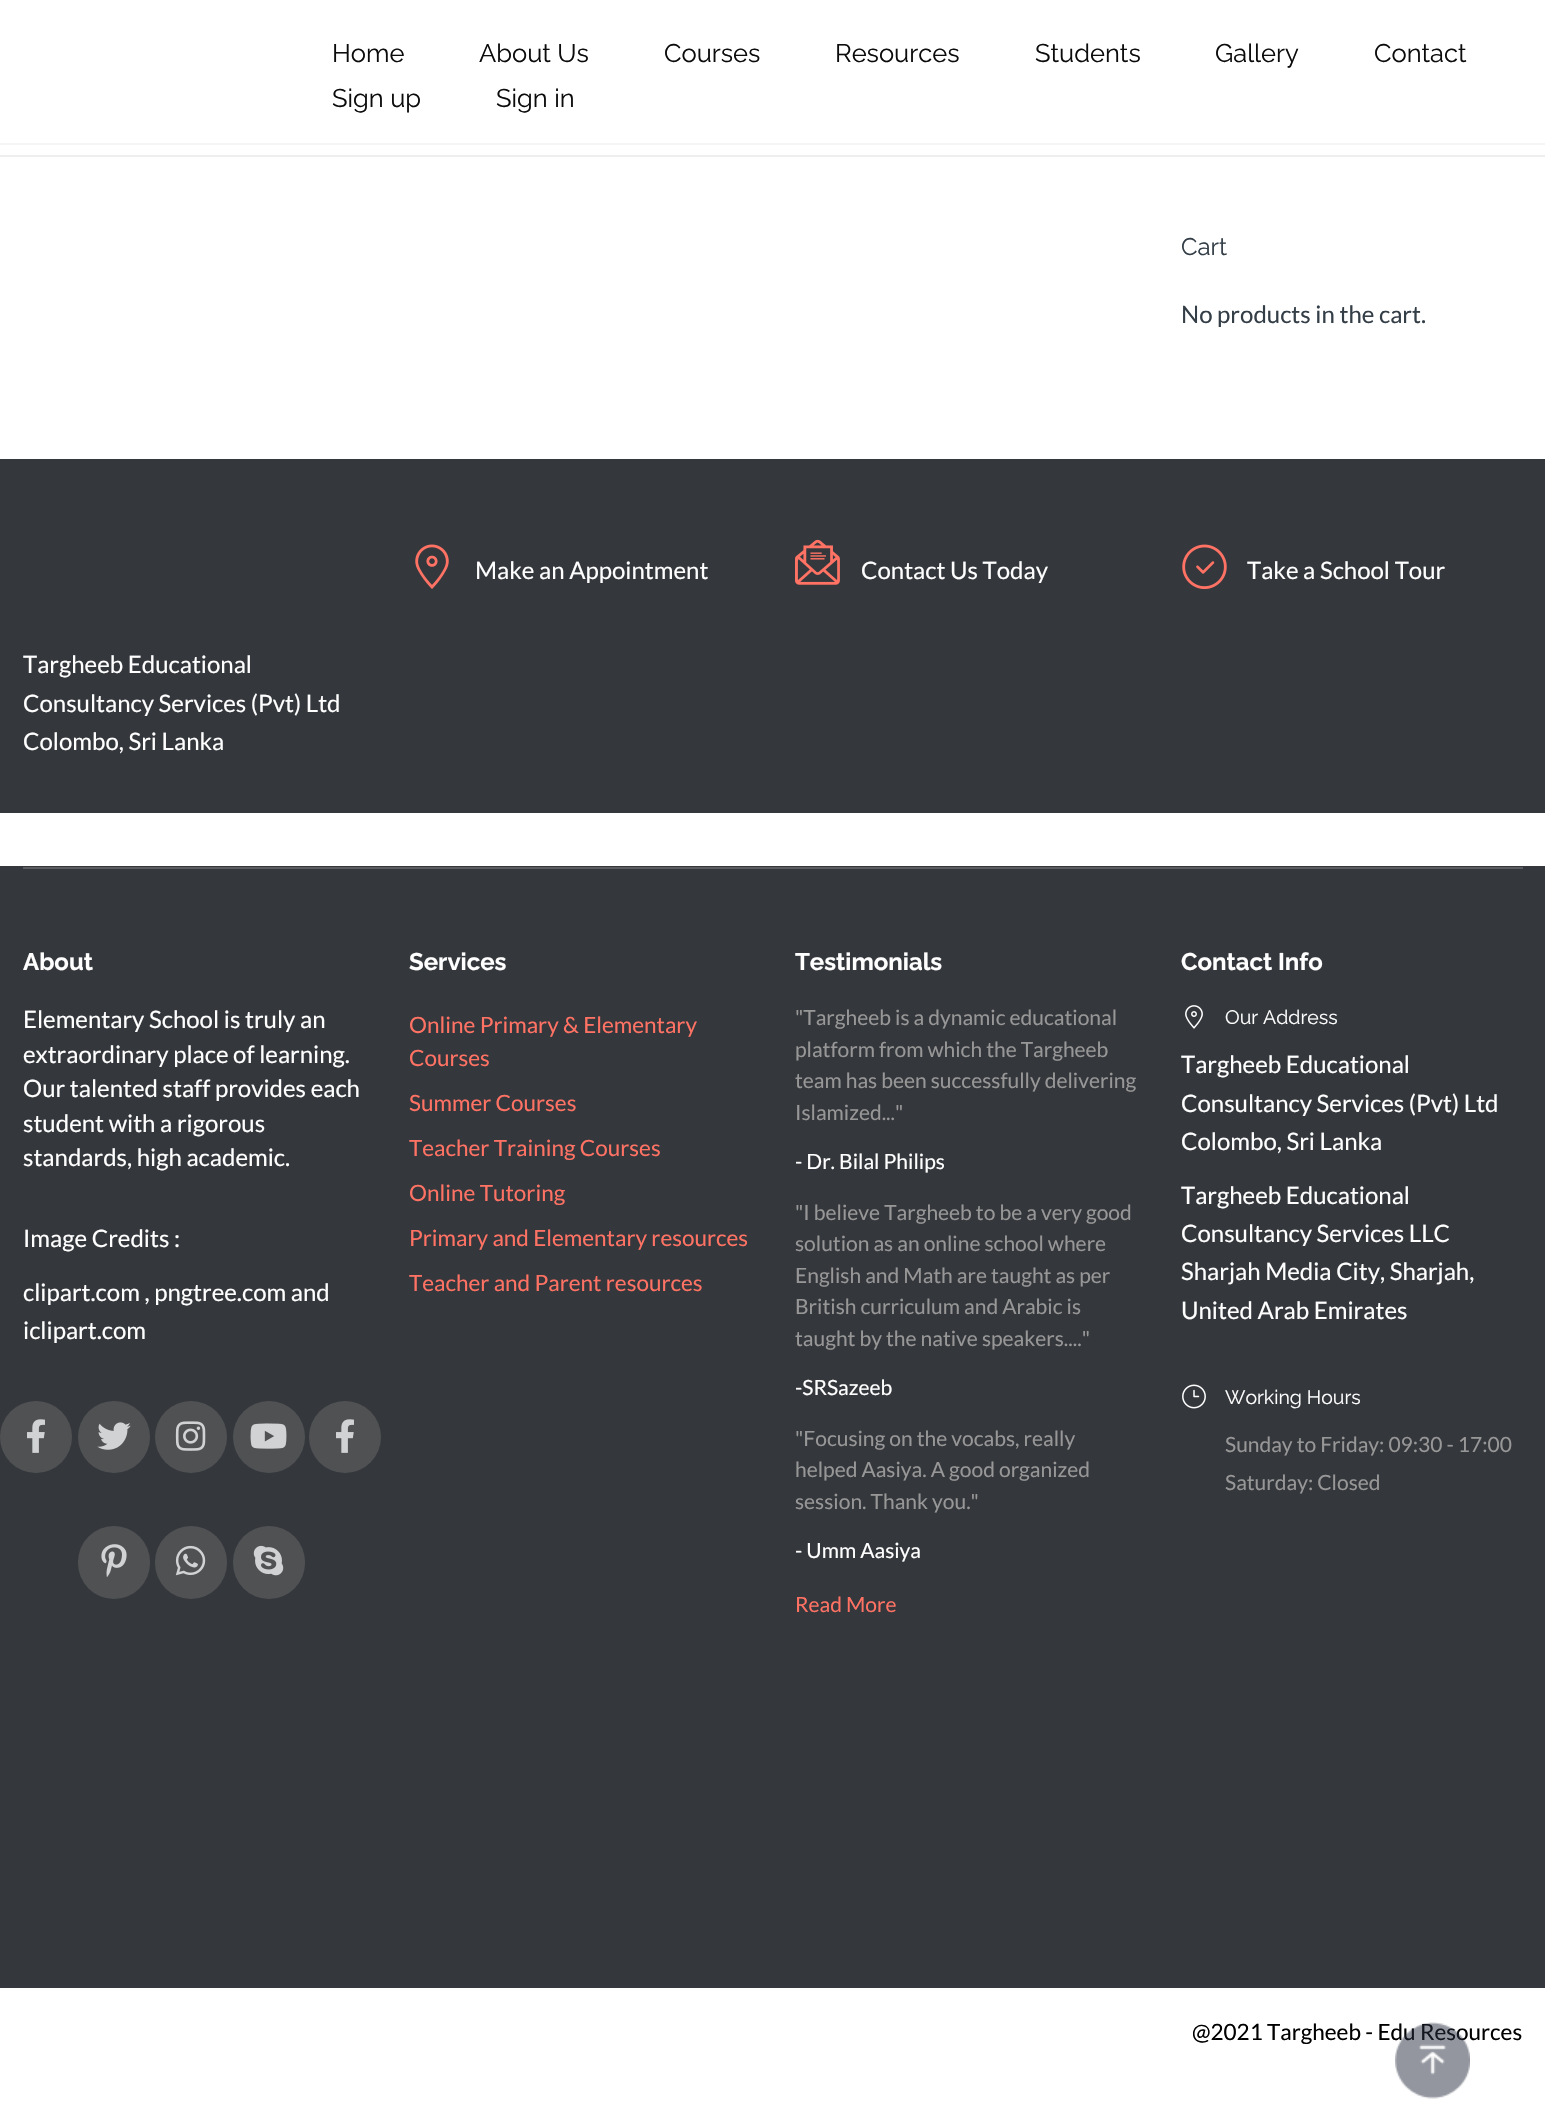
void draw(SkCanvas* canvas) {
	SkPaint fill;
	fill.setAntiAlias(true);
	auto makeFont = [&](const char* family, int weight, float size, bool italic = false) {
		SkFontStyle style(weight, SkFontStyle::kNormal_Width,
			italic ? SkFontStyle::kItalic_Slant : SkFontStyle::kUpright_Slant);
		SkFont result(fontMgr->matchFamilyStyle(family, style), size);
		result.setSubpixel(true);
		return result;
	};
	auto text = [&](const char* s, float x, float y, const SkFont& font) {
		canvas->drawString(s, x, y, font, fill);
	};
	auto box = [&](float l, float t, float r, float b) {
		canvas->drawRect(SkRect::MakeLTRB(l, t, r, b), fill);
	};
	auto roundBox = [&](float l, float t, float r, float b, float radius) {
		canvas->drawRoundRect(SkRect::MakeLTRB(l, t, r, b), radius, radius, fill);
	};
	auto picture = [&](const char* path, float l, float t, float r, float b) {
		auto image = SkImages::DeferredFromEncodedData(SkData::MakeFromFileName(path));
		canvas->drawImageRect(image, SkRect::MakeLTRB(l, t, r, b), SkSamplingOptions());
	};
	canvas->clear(0xFFFFFFFF);
	fill.setColor(0xFFF5F5F5);
	box(0, 143, 1545, 145);
	fill.setColor(0xFFEEEEEE);
	box(0, 155, 1545, 157);
	fill.setColor(0xFF34373C);
	box(0, 459, 1545, 813);
	picture("image0.png", 415, 544, 449, 589);
	picture("image1.png", 795, 539, 840, 585);
	picture("image2.png", 1182, 544, 1227, 590);
	box(0, 866, 1545, 1988);
	fill.setColor(0xFF5A5C60);
	box(23, 867, 1523, 869);
	fill.setColor(0xFF505153);
	canvas->drawCircle(36, 1437, 36, fill);
	picture("image3.png", 27, 1419, 45, 1453);
	canvas->drawCircle(114, 1437, 36, fill);
	picture("image4.png", 97, 1422, 131, 1450);
	roundBox(78, 1526, 150, 1599, 36);
	picture("image5.png", 101, 1544, 127, 1577);
	canvas->drawCircle(191, 1437, 36, fill);
	picture("image6.png", 175, 1421, 206, 1451);
	roundBox(155, 1526, 227, 1599, 36);
	picture("image7.png", 175, 1545, 206, 1576);
	canvas->drawCircle(269, 1437, 36, fill);
	picture("image8.png", 250, 1423, 287, 1449);
	roundBox(233, 1526, 305, 1599, 36);
	picture("image9.png", 253, 1545, 284, 1576);
	canvas->drawCircle(345, 1437, 36, fill);
	picture("image3.png", 336, 1419, 354, 1453);
	picture("image10.png", 1185, 1005, 1203, 1029);
	picture("image11.png", 1182, 1384, 1206, 1409);
	auto font1 = makeFont("Raleway", 400, 25.5f);
	fill.setColor(0xFF0C0C0C);
	text("Home", 332, 62, font1);
	text("About Us", 479, 62, font1);
	text("Courses", 664, 62, font1);
	text("Resources", 835, 62, font1);
	text("Students", 1035, 62, font1);
	text("Gallery", 1215, 62, font1);
	text("Contact", 1374, 62, font1);
	text("Sign up", 332, 107, font1);
	text("Sign in", 496, 107, font1);
	auto font2 = makeFont("Raleway", 400, 24);
	fill.setColor(0xFF343E47);
	text("Cart", 1181, 255, font2);
	auto font3 = makeFont("Lato", 400, 24);
	text("No products in the cart.", 1181, 323, font3);
	fill.setColor(0xFFFFFFFF);
	text("Make an Appointment", 475, 579, font3);
	text("Contact Us Today", 861, 579, font3);
	text("Take a School Tour", 1247, 579, font3);
	text("Targheeb Educational", 23, 673, font3);
	text("Consultancy Services (Pvt) Ltd", 23, 712, font3);
	text("Colombo, Sri Lanka", 23, 750, font3);
	auto font4 = makeFont("Raleway", 700, 24);
	text("About", 23, 970, font4);
	text("Elementary School is truly an", 23, 1028, font3);
	text("extraordinary place of learning.", 23, 1063, font3);
	text("Our talented staff provides each", 23, 1097, font3);
	text("student with a rigorous", 23, 1132, font3);
	text("standards, high academic.", 23, 1166, font3);
	text("Image Credits :", 23, 1247, font3);
	text("clipart.com , pngtree.com and", 23, 1301, font3);
	text("iclipart.com", 23, 1339, font3);
	text("Services", 409, 970, font4);
	auto font5 = makeFont("Lato", 400, 22.5f);
	fill.setColor(0xFFFF7264);
	text("Online Primary & Elementary", 409, 1033, font5);
	text("Courses", 409, 1066, font5);
	text("Summer Courses", 409, 1111, font5);
	text("Teacher Training Courses", 409, 1156, font5);
	text("Online Tutoring", 409, 1201, font5);
	text("Primary and Elementary resources", 409, 1246, font5);
	text("Teacher and Parent resources", 409, 1291, font5);
	fill.setColor(0xFFFFFFFF);
	text("Testimonials", 795, 970, font4);
	auto font6 = makeFont("Lato", 400, 21);
	fill.setColor(0xFF989797);
	text("\"Targheeb is a dynamic educational", 795, 1025, font6);
	text("platform from which the Targheeb", 795, 1057, font6);
	text("team has been successfully delivering", 795, 1088, font6);
	text("Islamized...\"", 795, 1120, font6);
	fill.setColor(0xFFFFFFFF);
	text("- Dr. Bilal Philips", 795, 1169, font6);
	fill.setColor(0xFF989797);
	text("\"I believe Targheeb to be a very good", 795, 1220, font6);
	text("solution as an online school where", 795, 1251, font6);
	text("English and Math are taught as per", 795, 1283, font6);
	text("British curriculum and Arabic is", 795, 1314, font6);
	text("taught by the native speakers....\"", 795, 1346, font6);
	fill.setColor(0xFFFFFFFF);
	text("-SRSazeeb", 795, 1395, font6);
	fill.setColor(0xFF989797);
	text("\"Focusing on the vocabs, really", 795, 1446, font6);
	text("helped Aasiya. A good organized", 795, 1477, font6);
	text("session. Thank you.\"", 795, 1509, font6);
	fill.setColor(0xFFFFFFFF);
	text("- Umm Aasiya", 795, 1558, font6);
	fill.setColor(0xFFFF7264);
	text("Read More", 795, 1612, font6);
	fill.setColor(0xFFFFFFFF);
	text("Contact Info", 1181, 970, font4);
	auto font7 = makeFont("Raleway", 400, 19.5f);
	text("Our Address", 1225, 1024, font7);
	text("Targheeb Educational", 1181, 1073, font3);
	text("Consultancy Services (Pvt) Ltd", 1181, 1112, font3);
	text("Colombo, Sri Lanka", 1181, 1150, font3);
	text("Targheeb Educational", 1181, 1204, font3);
	text("Consultancy Services LLC", 1181, 1242, font3);
	text("Sharjah Media City, Sharjah,", 1181, 1280, font3);
	text("United Arab Emirates", 1181, 1319, font3);
	text("Working Hours", 1225, 1404, font7);
	fill.setColor(0xFF989797);
	text("Sunday to Friday: 09:30 - 17:00", 1225, 1452, font6);
	text("Saturday: Closed", 1225, 1490, font6);
	fill.setColor(0xFF000000);
	text("@2021 Targheeb - Edu Resources", 1192, 2040, font5);
	picture("image12.png", 1395, 2022, 1470, 2099);
}
